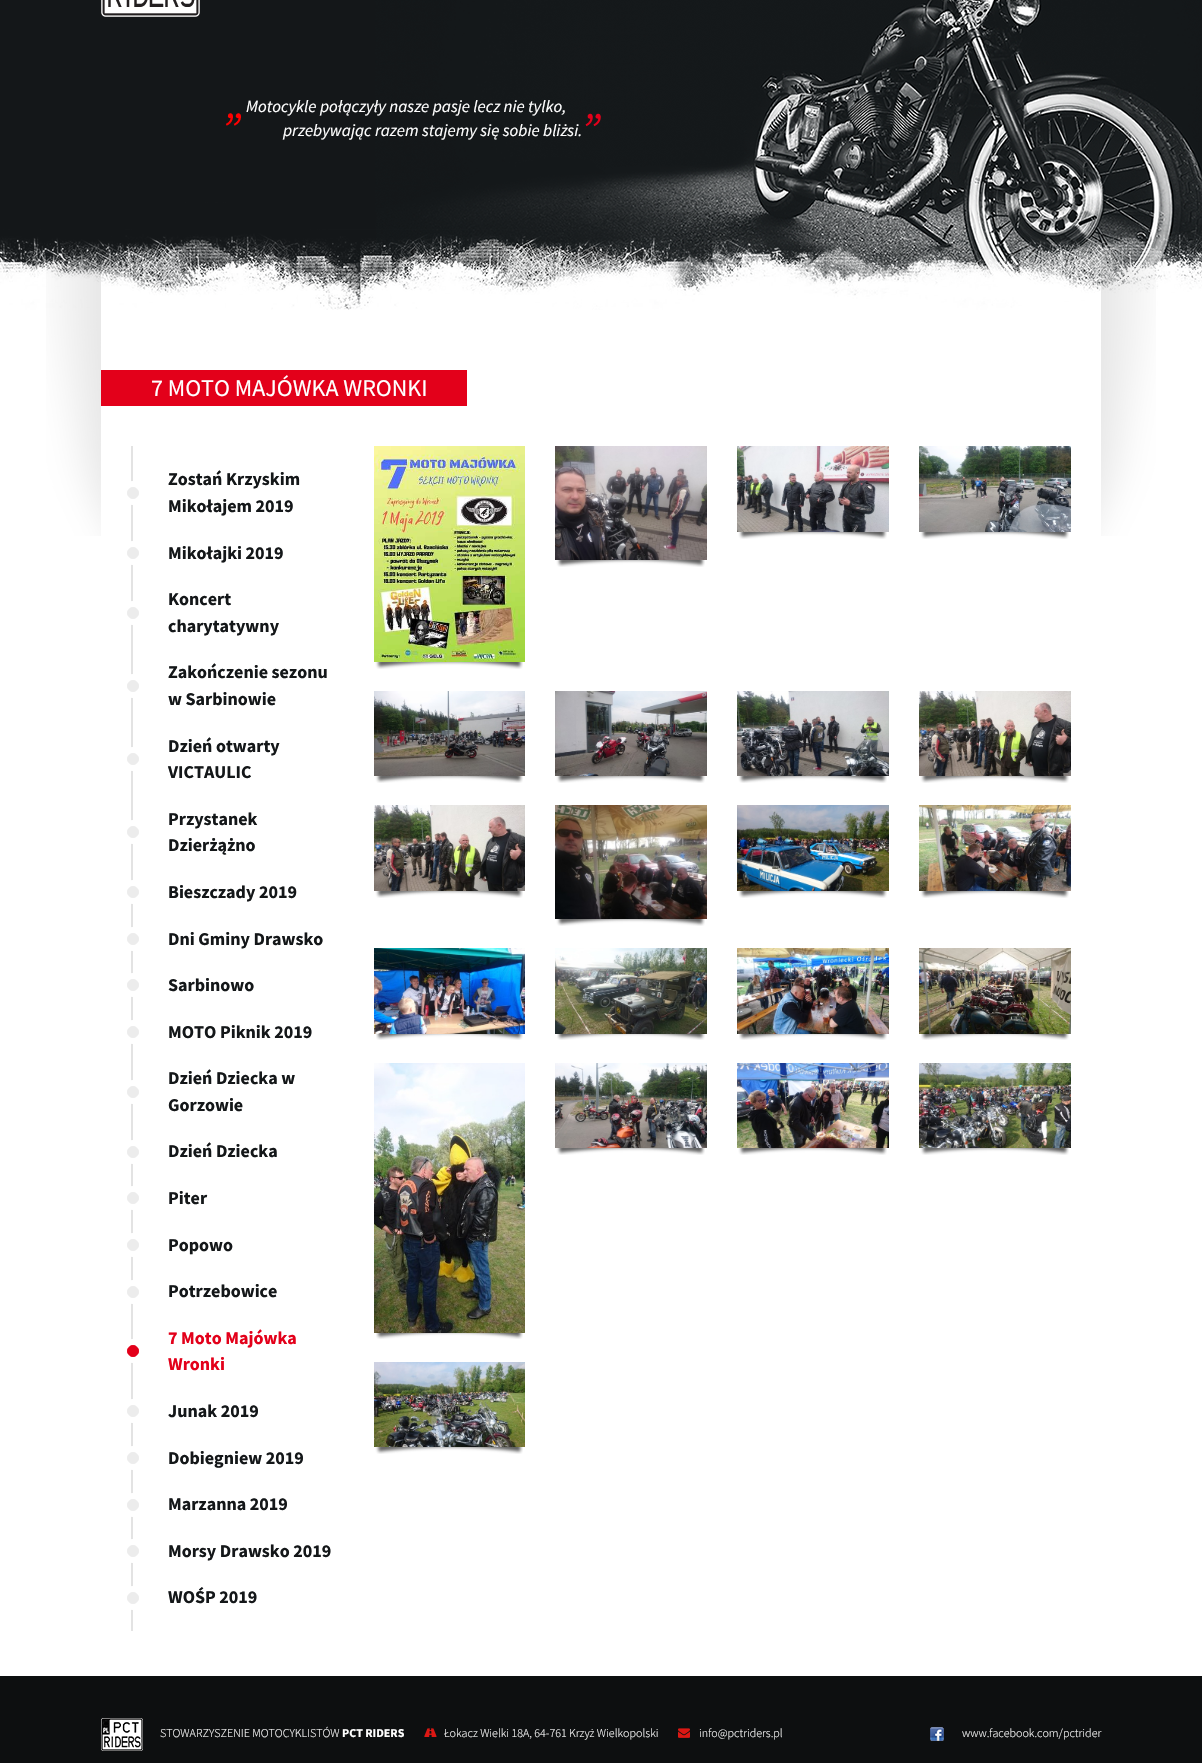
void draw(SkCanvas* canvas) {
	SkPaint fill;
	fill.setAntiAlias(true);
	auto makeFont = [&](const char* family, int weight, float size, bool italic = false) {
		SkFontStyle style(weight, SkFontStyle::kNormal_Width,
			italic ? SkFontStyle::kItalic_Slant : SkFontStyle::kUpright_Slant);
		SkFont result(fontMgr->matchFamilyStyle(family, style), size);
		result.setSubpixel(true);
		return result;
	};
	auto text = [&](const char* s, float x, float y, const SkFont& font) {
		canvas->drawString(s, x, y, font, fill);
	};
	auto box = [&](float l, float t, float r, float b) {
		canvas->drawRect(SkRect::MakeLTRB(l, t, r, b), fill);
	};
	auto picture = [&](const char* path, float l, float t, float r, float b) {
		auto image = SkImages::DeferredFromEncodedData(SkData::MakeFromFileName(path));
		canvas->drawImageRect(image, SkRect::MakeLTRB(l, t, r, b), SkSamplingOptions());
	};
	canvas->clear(0xFFFFFFFF);
	picture("image4.png", 46, 250, 1156, 536);
	picture("image0.png", 0, 0, 1202, 310);
	picture("image1.png", 101, 0, 200, 17);
	picture("image2.png", 226, 113, 241, 126);
	picture("image3.png", 585, 113, 601, 127);
	fill.setColor(0xFFE3001A);
	box(101, 370, 467, 406);
	fill.setColor(0xFFE3E3E3);
	box(131, 446, 133, 1631);
	picture("image5.png", 127, 481, 139, 505);
	picture("image5.png", 127, 541, 139, 565);
	picture("image5.png", 127, 601, 139, 625);
	picture("image5.png", 127, 674, 139, 698);
	picture("image5.png", 127, 747, 139, 771);
	picture("image5.png", 127, 820, 139, 844);
	picture("image5.png", 127, 880, 139, 904);
	picture("image5.png", 127, 927, 139, 951);
	picture("image5.png", 127, 973, 139, 997);
	picture("image5.png", 127, 1020, 139, 1044);
	picture("image5.png", 127, 1080, 139, 1104);
	picture("image5.png", 127, 1140, 139, 1164);
	picture("image5.png", 127, 1186, 139, 1210);
	picture("image5.png", 127, 1233, 139, 1257);
	picture("image5.png", 127, 1280, 139, 1304);
	picture("image6.png", 127, 1339, 139, 1363);
	picture("image5.png", 127, 1399, 139, 1423);
	picture("image5.png", 127, 1446, 139, 1470);
	picture("image5.png", 127, 1493, 139, 1517);
	picture("image5.png", 127, 1539, 139, 1563);
	picture("image5.png", 127, 1586, 139, 1610);
	picture("image7.png", 375, 662, 523, 669);
	picture("image8.png", 374, 446, 525, 662);
	picture("image9.png", 556, 560, 705, 567);
	picture("image10.png", 555, 446, 707, 560);
	picture("image9.png", 738, 532, 887, 539);
	picture("image11.png", 737, 446, 889, 532);
	picture("image9.png", 920, 532, 1069, 539);
	picture("image12.png", 919, 446, 1071, 532);
	picture("image7.png", 375, 776, 523, 783);
	picture("image13.png", 374, 691, 525, 776);
	picture("image9.png", 556, 776, 705, 783);
	picture("image14.png", 555, 691, 707, 776);
	picture("image9.png", 738, 776, 887, 783);
	picture("image15.png", 737, 691, 889, 776);
	picture("image9.png", 920, 776, 1069, 783);
	picture("image16.png", 919, 691, 1071, 776);
	picture("image7.png", 375, 891, 523, 898);
	picture("image17.png", 374, 805, 525, 891);
	picture("image9.png", 556, 919, 705, 926);
	picture("image18.png", 555, 805, 707, 919);
	picture("image9.png", 738, 891, 887, 898);
	picture("image19.png", 737, 805, 889, 891);
	picture("image9.png", 920, 891, 1069, 898);
	picture("image20.png", 919, 805, 1071, 891);
	picture("image21.png", 376, 1034, 523, 1040);
	picture("image22.png", 374, 948, 525, 1034);
	picture("image23.png", 557, 1034, 705, 1040);
	picture("image24.png", 555, 948, 707, 1034);
	picture("image23.png", 739, 1034, 887, 1040);
	picture("image25.png", 737, 948, 889, 1034);
	picture("image23.png", 921, 1034, 1069, 1040);
	picture("image26.png", 919, 948, 1071, 1034);
	picture("image21.png", 376, 1333, 523, 1339);
	picture("image27.png", 374, 1063, 525, 1333);
	picture("image9.png", 556, 1148, 705, 1155);
	picture("image28.png", 555, 1063, 707, 1148);
	picture("image9.png", 738, 1148, 887, 1155);
	picture("image29.png", 737, 1063, 889, 1148);
	picture("image9.png", 920, 1148, 1069, 1155);
	picture("image30.png", 919, 1063, 1071, 1148);
	picture("image7.png", 375, 1447, 523, 1454);
	picture("image31.png", 374, 1362, 525, 1447);
	fill.setColor(0xFF0D0F10);
	box(0, 1676, 1202, 1763);
	picture("image32.png", 101, 1718, 143, 1751);
	picture("image33.png", 424, 1728, 437, 1737);
	picture("image34.png", 678, 1728, 690, 1738);
	picture("image35.png", 930, 1727, 944, 1741);
	auto font1 = makeFont("Source Sans Pro", 400, 17, true);
	fill.setColor(0xFFFFFFFF);
	text("Motocykle połączyły nasze pasje lecz nie tylko,", 246, 112, font1);
	text("przebywając razem stajemy się sobie bliżsi.", 283, 136, font1);
	auto font2 = makeFont("Source Sans Pro", 400, 24);
	text("7 MOTO MAJÓWKA WRONKI", 151, 396, font2);
	auto font3 = makeFont("Source Sans Pro", 700, 18);
	fill.setColor(0xFF141719);
	text("Zostań Krzyskim", 168, 485, font3);
	text("Mikołajem 2019", 168, 512, font3);
	text("Mikołajki 2019", 168, 559, font3);
	text("Koncert", 168, 605, font3);
	text("charytatywny", 168, 632, font3);
	text("Zakończenie sezonu", 168, 678, font3);
	text("w Sarbinowie", 168, 705, font3);
	text("Dzień otwarty", 168, 752, font3);
	text("VICTAULIC", 168, 778, font3);
	text("Przystanek", 168, 825, font3);
	text("Dzierżążno", 168, 851, font3);
	text("Bieszczady 2019", 168, 898, font3);
	text("Dni Gminy Drawsko", 168, 945, font3);
	text("Sarbinowo", 168, 991, font3);
	text("MOTO Piknik 2019", 168, 1038, font3);
	text("Dzień Dziecka w", 168, 1084, font3);
	text("Gorzowie", 168, 1111, font3);
	text("Dzień Dziecka", 168, 1157, font3);
	text("Piter", 168, 1204, font3);
	text("Popowo", 168, 1251, font3);
	text("Potrzebowice", 168, 1297, font3);
	fill.setColor(0xFFE3001A);
	text("7 Moto Majówka", 168, 1344, font3);
	text("Wronki", 168, 1370, font3);
	fill.setColor(0xFF141719);
	text("Junak 2019", 168, 1417, font3);
	text("Dobiegniew 2019", 168, 1464, font3);
	text("Marzanna 2019", 168, 1510, font3);
	text("Morsy Drawsko 2019", 168, 1557, font3);
	text("WOŚP 2019", 168, 1603, font3);
	auto font4 = makeFont("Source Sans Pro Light", 300, 12);
	fill.setColor(0xFFFFFFFF);
	text("STOWARZYSZENIE MOTOCYKLISTÓW", 160, 1737, font4);
	auto font5 = makeFont("Source Sans Pro", 700, 12);
	text("PCT RIDERS", 342, 1737, font5);
	text("Łokacz Wielki 18A, 64-761 Krzyż Wielkopolski", 444, 1737, font4);
	text("info@pctriders.pl", 699, 1737, font4);
	text("www.facebook.com/pctrider", 962, 1737, font4);
}
